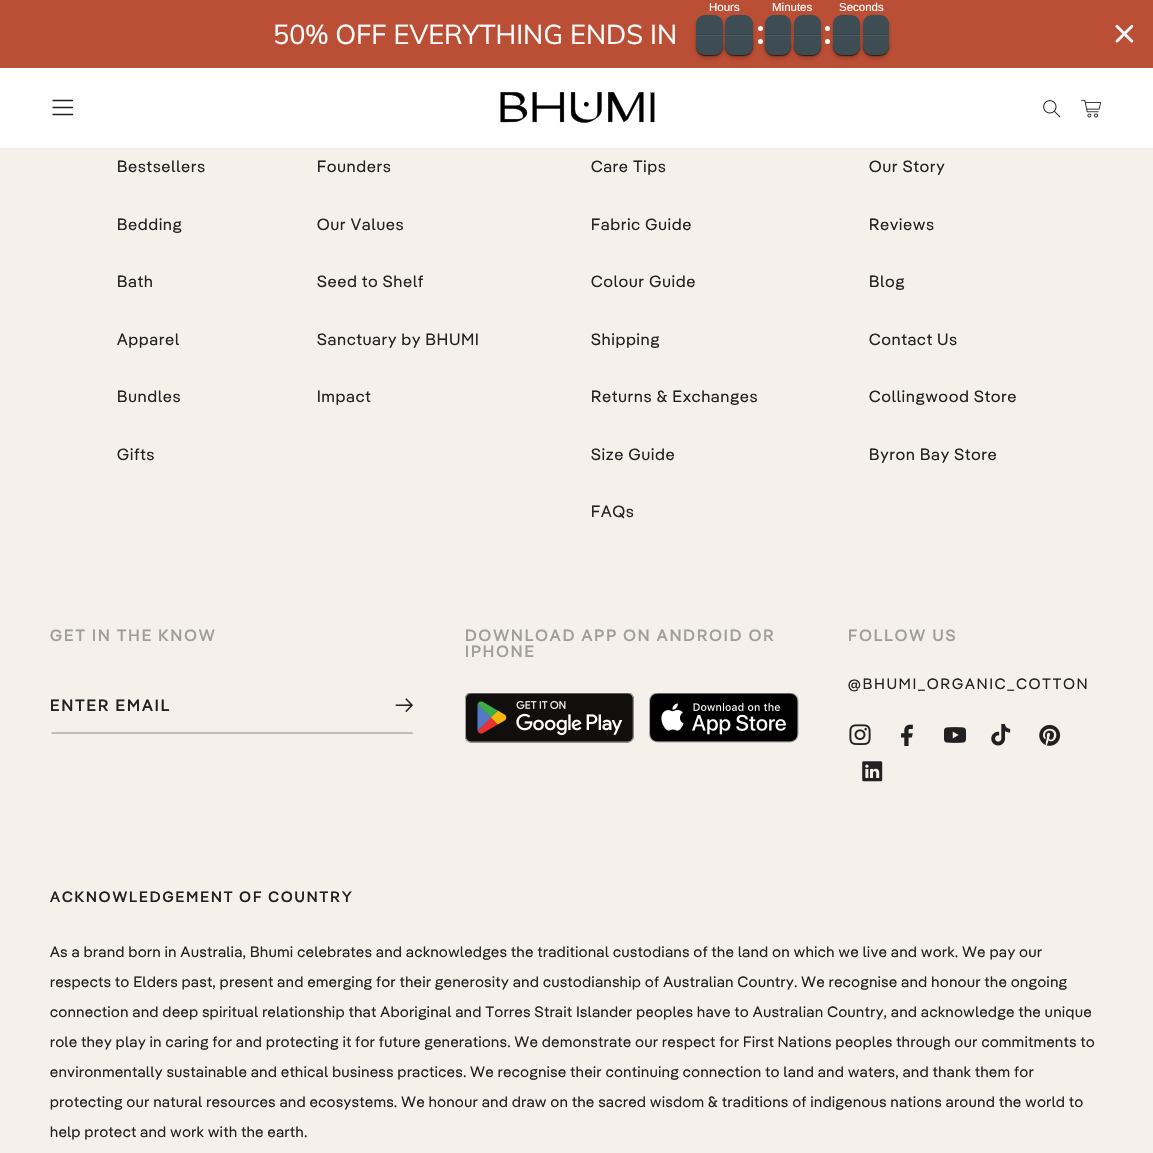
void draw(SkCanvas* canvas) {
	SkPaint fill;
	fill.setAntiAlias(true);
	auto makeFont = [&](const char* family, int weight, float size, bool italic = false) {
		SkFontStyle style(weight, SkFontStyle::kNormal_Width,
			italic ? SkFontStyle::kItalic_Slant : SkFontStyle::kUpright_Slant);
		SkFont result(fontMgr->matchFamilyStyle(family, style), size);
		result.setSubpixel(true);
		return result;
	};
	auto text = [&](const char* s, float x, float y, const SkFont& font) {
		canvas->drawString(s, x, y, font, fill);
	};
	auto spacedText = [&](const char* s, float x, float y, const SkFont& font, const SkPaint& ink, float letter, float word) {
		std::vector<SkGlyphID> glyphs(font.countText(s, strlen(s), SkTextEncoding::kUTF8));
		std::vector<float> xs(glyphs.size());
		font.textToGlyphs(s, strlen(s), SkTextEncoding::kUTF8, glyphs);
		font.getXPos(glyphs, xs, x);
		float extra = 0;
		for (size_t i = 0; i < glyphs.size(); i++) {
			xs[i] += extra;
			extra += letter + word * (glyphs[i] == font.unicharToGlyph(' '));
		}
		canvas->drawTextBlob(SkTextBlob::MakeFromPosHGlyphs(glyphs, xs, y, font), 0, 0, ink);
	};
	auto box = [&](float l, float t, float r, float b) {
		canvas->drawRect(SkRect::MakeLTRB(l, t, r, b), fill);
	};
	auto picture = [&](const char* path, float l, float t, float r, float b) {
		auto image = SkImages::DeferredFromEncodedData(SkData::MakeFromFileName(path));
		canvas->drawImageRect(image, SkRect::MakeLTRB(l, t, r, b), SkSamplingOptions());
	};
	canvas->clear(0xFFF5F1EA);
	fill.setColor(0xFFBB4F35);
	box(0, 0, 1153, 68);
	fill.setColor(0x3D000000);
	fill.setMaskFilter(SkMaskFilter::MakeBlur(kNormal_SkBlurStyle, 2));
	canvas->drawRoundRect(SkRect::MakeLTRB(696, 18, 723, 58), 9, 9, fill);
	fill.setMaskFilter(nullptr);
	fill.setColor(0x66000000);
	fill.setMaskFilter(SkMaskFilter::MakeBlur(kNormal_SkBlurStyle, 0.5f));
	canvas->drawRoundRect(SkRect::MakeLTRB(696, 36, 723, 56), 9, 9, fill);
	fill.setMaskFilter(nullptr);
	fill.setColor(0x3D000000);
	fill.setMaskFilter(SkMaskFilter::MakeBlur(kNormal_SkBlurStyle, 2));
	canvas->drawRoundRect(SkRect::MakeLTRB(725, 18, 753, 58), 9, 9, fill);
	fill.setMaskFilter(nullptr);
	fill.setColor(0x66000000);
	fill.setMaskFilter(SkMaskFilter::MakeBlur(kNormal_SkBlurStyle, 0.5f));
	canvas->drawRoundRect(SkRect::MakeLTRB(725, 36, 753, 56), 9, 9, fill);
	fill.setMaskFilter(nullptr);
	fill.setColor(0xFF3D4D53);
	canvas->drawPath(SkPathBuilder().moveTo(705, 15).lineTo(714, 15).cubicTo(719, 15, 723, 19, 723, 24).lineTo(723, 35).lineTo(696, 35).lineTo(696, 24).cubicTo(696, 19, 700, 15, 705, 15).close().detach(), fill);
	fill.setColor(0x66333333);
	box(696, 34, 723, 35);
	fill.setColor(0x66000000);
	fill.setMaskFilter(SkMaskFilter::MakeBlur(kNormal_SkBlurStyle, 0.5f));
	canvas->drawRoundRect(SkRect::MakeLTRB(696, 36, 723, 56), 9, 9, fill);
	fill.setMaskFilter(nullptr);
	fill.setColor(0xFF3D4D53);
	canvas->drawPath(SkPathBuilder().moveTo(696, 35).lineTo(723, 35).lineTo(723, 46).cubicTo(723, 51, 719, 55, 714, 55).lineTo(705, 55).cubicTo(700, 55, 696, 51, 696, 46).close().detach(), fill);
	fill.setColor(0x1ACCCCCC);
	box(696, 35, 723, 36);
	fill.setColor(0xFF3D4D53);
	canvas->drawPath(SkPathBuilder().moveTo(734, 15).lineTo(744, 15).cubicTo(749, 15, 753, 19, 753, 24).lineTo(753, 35).lineTo(725, 35).lineTo(725, 24).cubicTo(725, 19, 729, 15, 734, 15).close().detach(), fill);
	fill.setColor(0x66333333);
	box(725, 34, 753, 35);
	fill.setColor(0x66000000);
	fill.setMaskFilter(SkMaskFilter::MakeBlur(kNormal_SkBlurStyle, 0.5f));
	canvas->drawRoundRect(SkRect::MakeLTRB(725, 36, 753, 56), 9, 9, fill);
	fill.setMaskFilter(nullptr);
	fill.setColor(0xFF3D4D53);
	canvas->drawPath(SkPathBuilder().moveTo(725, 35).lineTo(753, 35).lineTo(753, 46).cubicTo(753, 51, 749, 55, 744, 55).lineTo(734, 55).cubicTo(729, 55, 725, 51, 725, 46).close().detach(), fill);
	fill.setColor(0x1ACCCCCC);
	box(725, 35, 753, 36);
	fill.setColor(0xFFFFFFFF);
	canvas->drawCircle(760.5f, 28.5f, 2.5f, fill);
	canvas->drawCircle(760.5f, 41.5f, 2.5f, fill);
	fill.setColor(0x3D000000);
	fill.setMaskFilter(SkMaskFilter::MakeBlur(kNormal_SkBlurStyle, 2));
	canvas->drawRoundRect(SkRect::MakeLTRB(765, 18, 791, 58), 9, 9, fill);
	fill.setMaskFilter(nullptr);
	fill.setColor(0x66000000);
	fill.setMaskFilter(SkMaskFilter::MakeBlur(kNormal_SkBlurStyle, 0.5f));
	canvas->drawRoundRect(SkRect::MakeLTRB(765, 36, 791, 56), 9, 9, fill);
	fill.setMaskFilter(nullptr);
	fill.setColor(0x3D000000);
	fill.setMaskFilter(SkMaskFilter::MakeBlur(kNormal_SkBlurStyle, 2));
	canvas->drawRoundRect(SkRect::MakeLTRB(794, 18, 821, 58), 9, 9, fill);
	fill.setMaskFilter(nullptr);
	fill.setColor(0xFF3D4D53);
	canvas->drawPath(SkPathBuilder().moveTo(774, 15).lineTo(782, 15).cubicTo(787, 15, 791, 19, 791, 24).lineTo(791, 35).lineTo(765, 35).lineTo(765, 24).cubicTo(765, 19, 769, 15, 774, 15).close().detach(), fill);
	fill.setColor(0x66333333);
	box(765, 34, 791, 35);
	fill.setColor(0x66000000);
	fill.setMaskFilter(SkMaskFilter::MakeBlur(kNormal_SkBlurStyle, 0.5f));
	canvas->drawRoundRect(SkRect::MakeLTRB(765, 36, 791, 56), 9, 9, fill);
	fill.setMaskFilter(nullptr);
	fill.setColor(0xFF3D4D53);
	canvas->drawPath(SkPathBuilder().moveTo(765, 35).lineTo(791, 35).lineTo(791, 46).cubicTo(791, 51, 787, 55, 782, 55).lineTo(774, 55).cubicTo(769, 55, 765, 51, 765, 46).close().detach(), fill);
	fill.setColor(0x1ACCCCCC);
	box(765, 35, 791, 36);
	fill.setColor(0x66000000);
	fill.setMaskFilter(SkMaskFilter::MakeBlur(kNormal_SkBlurStyle, 0.5f));
	canvas->drawRoundRect(SkRect::MakeLTRB(794, 36, 821, 56), 9, 9, fill);
	fill.setMaskFilter(nullptr);
	fill.setColor(0xFF3D4D53);
	canvas->drawPath(SkPathBuilder().moveTo(803, 15).lineTo(812, 15).cubicTo(817, 15, 821, 19, 821, 24).lineTo(821, 35).lineTo(794, 35).lineTo(794, 24).cubicTo(794, 19, 798, 15, 803, 15).close().detach(), fill);
	fill.setColor(0x66333333);
	box(794, 34, 821, 35);
	fill.setColor(0x66000000);
	fill.setMaskFilter(SkMaskFilter::MakeBlur(kNormal_SkBlurStyle, 0.5f));
	canvas->drawRoundRect(SkRect::MakeLTRB(794, 36, 821, 56), 9, 9, fill);
	fill.setMaskFilter(nullptr);
	fill.setColor(0xFF3D4D53);
	canvas->drawPath(SkPathBuilder().moveTo(794, 35).lineTo(821, 35).lineTo(821, 46).cubicTo(821, 51, 817, 55, 812, 55).lineTo(803, 55).cubicTo(798, 55, 794, 51, 794, 46).close().detach(), fill);
	fill.setColor(0x1ACCCCCC);
	box(794, 35, 821, 36);
	fill.setColor(0xFFFFFFFF);
	canvas->drawCircle(827.5f, 28.5f, 2.5f, fill);
	canvas->drawCircle(827.5f, 41.5f, 2.5f, fill);
	fill.setColor(0x3D000000);
	fill.setMaskFilter(SkMaskFilter::MakeBlur(kNormal_SkBlurStyle, 2));
	canvas->drawRoundRect(SkRect::MakeLTRB(833, 18, 860, 58), 9, 9, fill);
	fill.setMaskFilter(nullptr);
	fill.setColor(0x66000000);
	fill.setMaskFilter(SkMaskFilter::MakeBlur(kNormal_SkBlurStyle, 0.5f));
	canvas->drawRoundRect(SkRect::MakeLTRB(833, 36, 860, 56), 9, 9, fill);
	fill.setMaskFilter(nullptr);
	fill.setColor(0x3D000000);
	fill.setMaskFilter(SkMaskFilter::MakeBlur(kNormal_SkBlurStyle, 2));
	canvas->drawRoundRect(SkRect::MakeLTRB(863, 18, 889, 58), 9, 9, fill);
	fill.setMaskFilter(nullptr);
	fill.setColor(0xFF3D4D53);
	canvas->drawPath(SkPathBuilder().moveTo(842, 15).lineTo(851, 15).cubicTo(856, 15, 860, 19, 860, 24).lineTo(860, 35).lineTo(833, 35).lineTo(833, 24).cubicTo(833, 19, 837, 15, 842, 15).close().detach(), fill);
	fill.setColor(0x66333333);
	box(833, 34, 860, 35);
	fill.setColor(0x66000000);
	fill.setMaskFilter(SkMaskFilter::MakeBlur(kNormal_SkBlurStyle, 0.5f));
	canvas->drawRoundRect(SkRect::MakeLTRB(833, 36, 860, 56), 9, 9, fill);
	fill.setMaskFilter(nullptr);
	fill.setColor(0xFF3D4D53);
	canvas->drawPath(SkPathBuilder().moveTo(833, 35).lineTo(860, 35).lineTo(860, 46).cubicTo(860, 51, 856, 55, 851, 55).lineTo(842, 55).cubicTo(837, 55, 833, 51, 833, 46).close().detach(), fill);
	fill.setColor(0x1ACCCCCC);
	box(833, 35, 860, 36);
	fill.setColor(0x66000000);
	fill.setMaskFilter(SkMaskFilter::MakeBlur(kNormal_SkBlurStyle, 0.5f));
	canvas->drawRoundRect(SkRect::MakeLTRB(863, 36, 889, 56), 9, 9, fill);
	fill.setMaskFilter(nullptr);
	fill.setColor(0xFF3D4D53);
	canvas->drawPath(SkPathBuilder().moveTo(872, 15).lineTo(880, 15).cubicTo(885, 15, 889, 19, 889, 24).lineTo(889, 35).lineTo(863, 35).lineTo(863, 24).cubicTo(863, 19, 867, 15, 872, 15).close().detach(), fill);
	fill.setColor(0x66333333);
	box(863, 34, 889, 35);
	fill.setColor(0x66000000);
	fill.setMaskFilter(SkMaskFilter::MakeBlur(kNormal_SkBlurStyle, 0.5f));
	canvas->drawRoundRect(SkRect::MakeLTRB(863, 36, 889, 56), 9, 9, fill);
	fill.setMaskFilter(nullptr);
	fill.setColor(0xFF3D4D53);
	canvas->drawPath(SkPathBuilder().moveTo(863, 35).lineTo(889, 35).lineTo(889, 46).cubicTo(889, 51, 885, 55, 880, 55).lineTo(872, 55).cubicTo(867, 55, 863, 51, 863, 46).close().detach(), fill);
	fill.setColor(0x1ACCCCCC);
	box(863, 35, 889, 36);
	picture("image0.png", 1115, 24, 1134, 43);
	fill.setColor(0xFFFFFFFF);
	box(0, 68, 1153, 148);
	fill.setColor(0xFFEDEDED);
	box(0, 149, 1153, 150);
	fill.setColor(0xFFEEEEEE);
	box(0, 148, 1153, 149);
	fill.setStyle(SkPaint::kStroke_Style);
	fill.setStrokeWidth(1.3f);
	fill.setColor(0xFF212121);
	canvas->drawPath(SkPathBuilder().moveTo(52.5f, 100.5f).lineTo(73, 100.5f).moveTo(52.5f, 107.5f).lineTo(73, 107.5f).moveTo(52.5f, 114.5f).lineTo(73, 114.5f).detach(), fill);
	picture("image1.png", 500, 92, 655, 123);
	picture("image2.png", 1043, 100, 1061, 118);
	picture("image3.png", 1081, 99, 1102, 118);
	picture("image4.png", 395, 698, 413, 713);
	fill.setStyle(SkPaint::kFill_Style);
	fill.setColor(0xFFC0BDB8);
	canvas->drawPath(SkPathBuilder().moveTo(414, 734).lineTo(51, 734).lineTo(52, 732).lineTo(412, 732).close().detach(), fill);
	picture("image5.png", 465, 693, 634, 743);
	picture("image6.png", 649, 693, 799, 743);
	picture("image7.png", 849, 724, 871, 745);
	picture("image8.png", 901, 724, 913, 746);
	picture("image9.png", 944, 727, 966, 743);
	picture("image10.png", 991, 724, 1011, 746);
	picture("image11.png", 1039, 724, 1061, 746);
	picture("image12.png", 862, 761, 883, 782);
	auto font1 = makeFont("Liberation Sans", 400, 11.5f);
	fill.setColor(0xFFFFFFFF);
	text("Hours", 709, 11, font1);
	text("Minutes", 772, 11, font1);
	text("Seconds", 839, 11, font1);
	auto font2 = makeFont("Muli", 400, 27);
	text("50% OFF EVERYTHING ENDS IN", 273, 44, font2);
	auto font3 = makeFont("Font", 400, 16.25f);
	fill.setColor(0xFF212121);
	spacedText("Bestsellers", 117, 172, font3, fill, 1, 0);
	spacedText("Bedding", 117, 230, font3, fill, 1, 0);
	spacedText("Bath", 117, 287, font3, fill, 1, 0);
	spacedText("Apparel", 117, 345, font3, fill, 1, 0);
	spacedText("Bundles", 117, 402, font3, fill, 1, 0);
	spacedText("Gifts", 117, 460, font3, fill, 1, 0);
	spacedText("Founders", 317, 172, font3, fill, 1, 0);
	spacedText("Our Values", 317, 230, font3, fill, 1, 0);
	spacedText("Seed to Shelf", 317, 287, font3, fill, 1, 0);
	spacedText("Sanctuary by BHUMI", 317, 345, font3, fill, 1, 0);
	spacedText("Impact", 317, 402, font3, fill, 1, 0);
	spacedText("Care Tips", 591, 172, font3, fill, 1, 0);
	spacedText("Fabric Guide", 591, 230, font3, fill, 1, 0);
	spacedText("Colour Guide", 591, 287, font3, fill, 1, 0);
	spacedText("Shipping", 591, 345, font3, fill, 1, 0);
	spacedText("Returns & Exchanges", 591, 402, font3, fill, 1, 0);
	spacedText("Size Guide", 591, 460, font3, fill, 1, 0);
	spacedText("FAQs", 591, 517, font3, fill, 1, 0);
	spacedText("Our Story", 869, 172, font3, fill, 1, 0);
	spacedText("Reviews", 869, 230, font3, fill, 1, 0);
	spacedText("Blog", 869, 287, font3, fill, 1, 0);
	spacedText("Contact Us", 869, 345, font3, fill, 1, 0);
	spacedText("Collingwood Store", 869, 402, font3, fill, 1, 0);
	spacedText("Byron Bay Store", 869, 460, font3, fill, 1, 0);
	auto font4 = makeFont("Font", 500, 16.25f);
	fill.setColor(0xFFA09E9A);
	spacedText("GET IN THE KNOW", 50, 641, font4, fill, 2, 0);
	fill.setColor(0xFF212121);
	spacedText("ENTER EMAIL", 50, 711, font4, fill, 2, 0);
	fill.setColor(0xFFA09E9A);
	spacedText("DOWNLOAD APP ON ANDROID OR", 465, 641, font4, fill, 2, 0);
	spacedText("IPHONE", 465, 657, font4, fill, 2, 0);
	spacedText("FOLLOW US", 848, 641, font4, fill, 2, 0);
	auto font5 = makeFont("Font", 400, 15);
	fill.setColor(0xFF212121);
	spacedText("@BHUMI_ORGANIC_COTTON", 848, 689, font5, fill, 2, 0);
	auto font6 = makeFont("Font", 500, 15);
	spacedText("ACKNOWLEDGEMENT OF COUNTRY", 50, 902, font6, fill, 2, 0);
	spacedText("As a brand born in Australia, Bhumi celebrates and acknowledges the traditional custodians of the land on which we live and work. We pay our", 50, 957, font5, fill, 0.6f, 0);
	spacedText("respects to Elders past, present and emerging for their generosity and custodianship of Australian Country. We recognise and honour the ongoing", 50, 987, font5, fill, 0.6f, 0);
	spacedText("connection and deep spiritual relationship that Aboriginal and Torres Strait Islander peoples have to Australian Country, and acknowledge the unique", 50, 1017, font5, fill, 0.6f, 0);
	spacedText("role they play in caring for and protecting it for future generations. We demonstrate our respect for First Nations peoples through our commitments to", 50, 1047, font5, fill, 0.6f, 0);
	spacedText("environmentally sustainable and ethical business practices. We recognise their continuing connection to land and waters, and thank them for", 50, 1077, font5, fill, 0.6f, 0);
	spacedText("protecting our natural resources and ecosystems. We honour and draw on the sacred wisdom & traditions of indigenous nations around the world to", 50, 1107, font5, fill, 0.6f, 0);
	spacedText("help protect and work with the earth.", 50, 1137, font5, fill, 0.6f, 0);
}
